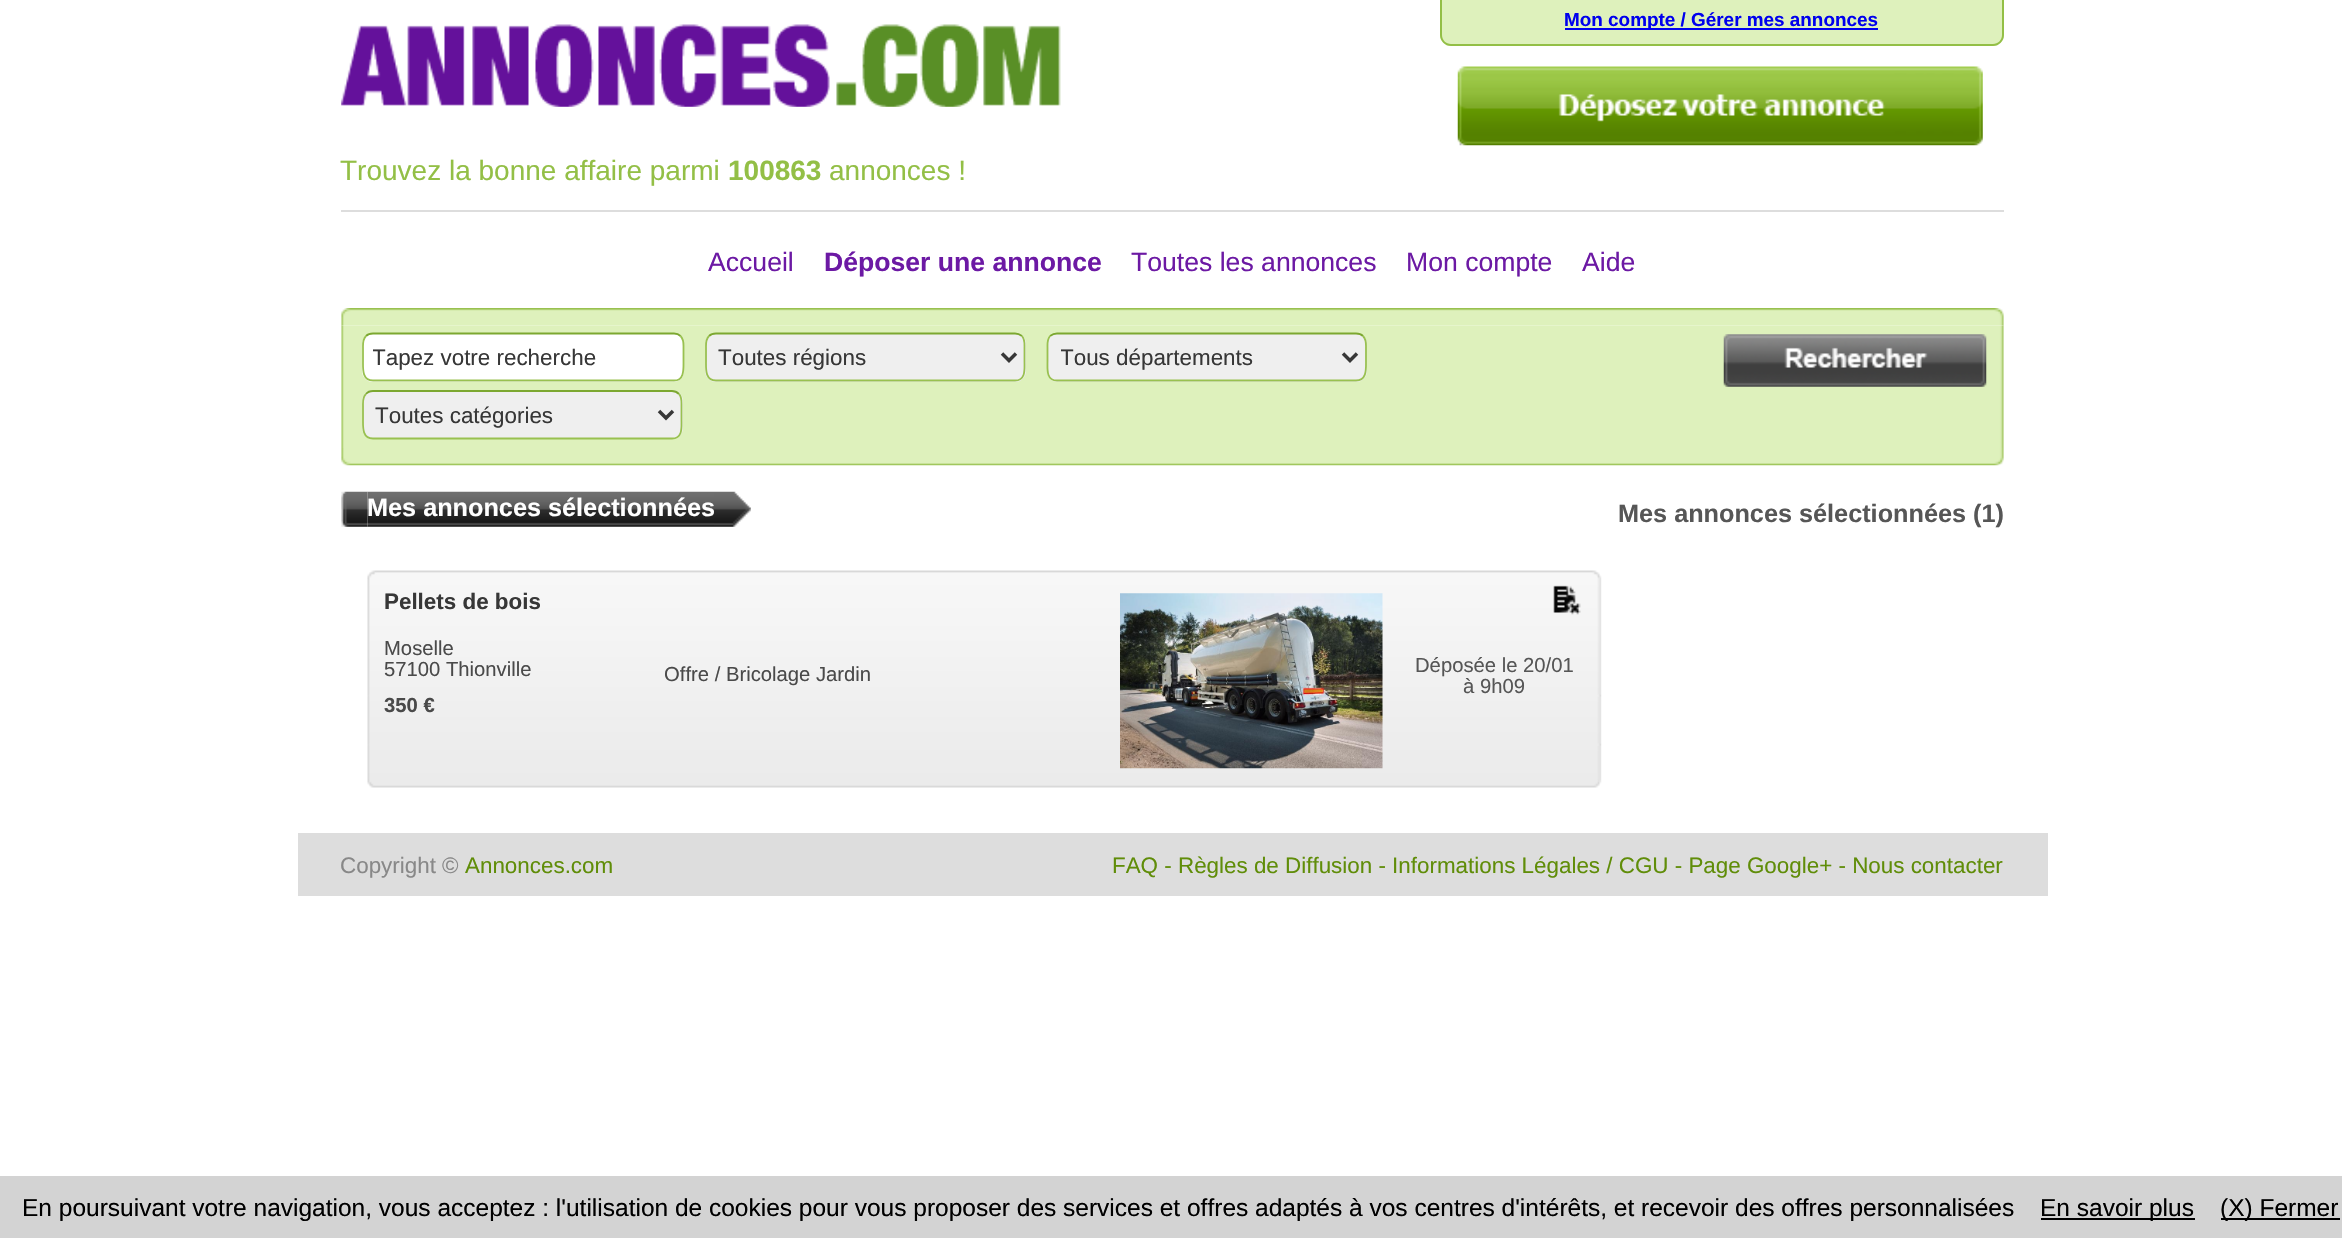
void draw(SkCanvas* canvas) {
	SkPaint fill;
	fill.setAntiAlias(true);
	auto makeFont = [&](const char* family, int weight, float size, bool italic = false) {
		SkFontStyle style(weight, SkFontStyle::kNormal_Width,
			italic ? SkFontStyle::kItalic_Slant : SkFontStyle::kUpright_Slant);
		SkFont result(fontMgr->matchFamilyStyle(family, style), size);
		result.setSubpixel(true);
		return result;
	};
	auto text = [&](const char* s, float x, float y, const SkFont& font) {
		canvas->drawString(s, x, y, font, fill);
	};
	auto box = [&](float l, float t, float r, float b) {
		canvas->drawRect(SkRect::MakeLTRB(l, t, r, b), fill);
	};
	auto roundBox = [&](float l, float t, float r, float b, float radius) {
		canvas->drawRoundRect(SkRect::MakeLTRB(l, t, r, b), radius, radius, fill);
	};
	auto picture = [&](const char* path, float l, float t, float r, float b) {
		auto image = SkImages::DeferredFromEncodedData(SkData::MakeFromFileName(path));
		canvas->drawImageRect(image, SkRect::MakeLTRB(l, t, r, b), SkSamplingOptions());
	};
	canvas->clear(0xFFFFFFFF);
	fill.setColor(0xFFDEF1BC);
	canvas->drawPath(SkPathBuilder().moveTo(1440, 0).lineTo(2004, 0).lineTo(2004, 35).cubicTo(2004, 41, 1999, 46, 1993, 46).lineTo(1451, 46).cubicTo(1445, 46, 1440, 41, 1440, 35).close().detach(), fill);
	fill.setColor(0xFF93BF46);
	canvas->drawPath(SkPathBuilder(SkPathFillType::kEvenOdd).moveTo(1440, 0).lineTo(2004, 0).lineTo(2004, 35).cubicTo(2004, 41, 1999, 46, 1993, 46).lineTo(1451, 46).cubicTo(1445, 46, 1440, 41, 1440, 35).close().moveTo(1442, 0).lineTo(2002, 0).lineTo(2002, 35).cubicTo(2002, 40, 1998, 44, 1993, 44).lineTo(1451, 44).cubicTo(1446, 44, 1442, 40, 1442, 35).close().detach(), fill);
	fill.setColor(0xFF0000EE);
	box(1565, 28, 1878, 30);
	picture("image0.png", 1457, 66, 1983, 146);
	picture("image1.png", 341, 24, 1061, 107);
	fill.setColor(0xFFDDDDDD);
	box(341, 210, 2004, 212);
	picture("image2.png", 341, 308, 2004, 326);
	picture("image3.png", 341, 325, 2004, 448);
	fill.setColor(0xFFFFFFFF);
	roundBox(362, 333, 684, 382, 11);
	fill.setStyle(SkPaint::kStroke_Style);
	fill.setStrokeWidth(1.8f);
	fill.setColor(0xFF7CA830);
	canvas->drawPath(SkPathBuilder().moveTo(366, 336).cubicTo(367.5f, 334.5f, 370, 333.5f, 373, 333.5f).lineTo(674, 333.5f).cubicTo(676.5f, 333.5f, 679, 334.5f, 680.5f, 336).detach(), fill);
	fill.setColor(0xFF99C150);
	canvas->drawPath(SkPathBuilder().moveTo(680.5f, 336).cubicTo(684, 339.5f, 683.5f, 343.5f, 683.5f, 347.5f).lineTo(683.5f, 361.5f).cubicTo(683.5f, 369, 684.5f, 380.5f, 674, 380.5f).lineTo(373, 380.5f).cubicTo(362, 380.5f, 363, 369, 363, 361.5f).lineTo(363, 347.5f).cubicTo(363, 343.5f, 362.5f, 339.5f, 366, 336).detach(), fill);
	fill.setStyle(SkPaint::kFill_Style);
	fill.setColor(0xFFEFEFEF);
	roundBox(705, 333, 1026, 382, 11);
	fill.setStyle(SkPaint::kStroke_Style);
	fill.setColor(0xFF7CA830);
	canvas->drawPath(SkPathBuilder().moveTo(709, 336).cubicTo(710.5f, 334.5f, 713, 333.5f, 716, 333.5f).lineTo(1015, 333.5f).cubicTo(1017.5f, 333.5f, 1020, 334.5f, 1022, 336).detach(), fill);
	fill.setColor(0xFF99C150);
	canvas->drawPath(SkPathBuilder().moveTo(1022, 336).cubicTo(1025, 339.5f, 1024.5f, 343.5f, 1024.5f, 347.5f).lineTo(1024.5f, 361.5f).cubicTo(1024.5f, 369, 1026, 380.5f, 1015, 380.5f).lineTo(716, 380.5f).cubicTo(705, 380.5f, 706, 369, 706, 361.5f).lineTo(706, 347.5f).cubicTo(706, 343.5f, 705.5f, 339.5f, 709, 336).detach(), fill);
	fill.setStrokeWidth(3.5f);
	fill.setColor(0xFF373737);
	canvas->drawPath(SkPathBuilder().moveTo(1002, 353.5f).lineTo(1009, 360.5f).lineTo(1016, 353.5f).detach(), fill);
	fill.setStyle(SkPaint::kFill_Style);
	fill.setColor(0xFFEFEFEF);
	roundBox(1047, 333, 1367, 382, 11);
	fill.setStyle(SkPaint::kStroke_Style);
	fill.setStrokeWidth(1.8f);
	fill.setColor(0xFF7CA830);
	canvas->drawPath(SkPathBuilder().moveTo(1050, 336).cubicTo(1052, 334.5f, 1054.5f, 333.5f, 1057, 333.5f).lineTo(1356, 333.5f).cubicTo(1359, 333.5f, 1361.5f, 334.5f, 1363, 336).detach(), fill);
	fill.setColor(0xFF99C150);
	canvas->drawPath(SkPathBuilder().moveTo(1363, 336).cubicTo(1366.5f, 339.5f, 1366, 343.5f, 1366, 347.5f).lineTo(1366, 361.5f).cubicTo(1366, 369, 1367, 380.5f, 1356, 380.5f).lineTo(1057, 380.5f).cubicTo(1046, 380.5f, 1047.5f, 369, 1047.5f, 361.5f).lineTo(1047.5f, 347.5f).cubicTo(1047.5f, 343.5f, 1047, 339.5f, 1050, 336).detach(), fill);
	fill.setStrokeWidth(3.5f);
	fill.setColor(0xFF373737);
	canvas->drawPath(SkPathBuilder().moveTo(1343, 353.5f).lineTo(1350, 360.5f).lineTo(1357, 353.5f).detach(), fill);
	picture("image4.png", 1723, 334, 1987, 387);
	fill.setStyle(SkPaint::kFill_Style);
	fill.setColor(0xFFEFEFEF);
	roundBox(362, 390, 683, 439, 11);
	fill.setStyle(SkPaint::kStroke_Style);
	fill.setStrokeWidth(1.8f);
	fill.setColor(0xFF7CA830);
	canvas->drawPath(SkPathBuilder().moveTo(366, 394).cubicTo(367.5f, 392, 370, 391, 373, 391).lineTo(672, 391).cubicTo(674.5f, 391, 677, 392, 679, 394).detach(), fill);
	fill.setColor(0xFF99C150);
	canvas->drawPath(SkPathBuilder().moveTo(679, 394).cubicTo(682, 397, 681.5f, 401, 681.5f, 405.5f).lineTo(681.5f, 419.5f).cubicTo(681.5f, 427, 683, 438.5f, 672, 438.5f).lineTo(373, 438.5f).cubicTo(362, 438.5f, 363, 427, 363, 419.5f).lineTo(363, 405.5f).cubicTo(363, 401, 362.5f, 397, 366, 394).detach(), fill);
	fill.setStrokeWidth(3.5f);
	fill.setColor(0xFF373737);
	canvas->drawPath(SkPathBuilder().moveTo(659, 411).lineTo(666, 418).lineTo(673, 411).detach(), fill);
	picture("image5.png", 341, 448, 2004, 466);
	picture("image6.png", 341, 491, 368, 527);
	picture("image7.png", 367, 491, 714, 527);
	picture("image8.png", 714, 491, 751, 527);
	picture("image10.png", 367, 570, 1602, 788);
	picture("image9.png", 1553, 585, 1581, 615);
	picture("image11.png", 1120, 593, 1383, 769);
	fill.setStyle(SkPaint::kFill_Style);
	fill.setColor(0xFFDDDDDD);
	box(298, 833, 2048, 896);
	fill.setColor(0xFFD3D3D3);
	box(0, 1176, 2342, 1238);
	fill.setColor(0xFF000000);
	box(2041, 1218, 2195, 1220);
	box(2221, 1218, 2340, 1220);
	auto font1 = makeFont("Liberation Sans", 700, 18.9f);
	fill.setColor(0xFF0000EE);
	text("Mon compte / Gérer mes annonces", 1564, 26, font1);
	auto font2 = makeFont("Liberation Sans", 400, 28);
	fill.setColor(0xFF93BF46);
	text("Trouvez la bonne affaire parmi", 340, 180, font2);
	auto font3 = makeFont("Liberation Sans", 700, 28);
	text("100863", 728, 180, font3);
	text("annonces !", 829, 180, font2);
	auto font4 = makeFont("Liberation Sans", 400, 26.6f);
	fill.setColor(0xFF6C19A4);
	text("Accueil", 708, 271, font4);
	auto font5 = makeFont("Liberation Sans", 700, 26.6f);
	text("Déposer une annonce", 824, 271, font5);
	text("Toutes les annonces", 1131, 271, font4);
	text("Mon compte", 1406, 271, font4);
	text("Aide", 1582, 271, font4);
	canvas->save();
	canvas->clipRect(SkRect::MakeLTRB(373, 345, 679, 371));
	auto font6 = makeFont("Liberation Sans", 400, 22.4f);
	fill.setColor(0xFF373737);
	text("Tapez votre recherche", 372, 365, font6);
	canvas->restore();
	text("Toutes régions", 718, 365, font6);
	canvas->save();
	canvas->clipRect(SkRect::MakeLTRB(1061, 343, 1330, 373));
	text("Tous départements", 1060, 365, font6);
	canvas->restore();
	text("Toutes catégories", 375, 423, font6);
	auto font7 = makeFont("Liberation Sans", 700, 25.25f);
	fill.setColor(0xFFFFFFFF);
	text("Mes annonces sélectionnées", 367, 516, font7);
	fill.setColor(0xFF565656);
	text("Mes annonces sélectionnées (1)", 1618, 522, font7);
	auto font8 = makeFont("Liberation Sans", 700, 22.4f);
	fill.setColor(0xFF373737);
	text("Pellets de bois", 384, 609, font8);
	auto font9 = makeFont("Liberation Sans", 400, 20.25f);
	fill.setColor(0xFF4A4A4A);
	text("Moselle", 384, 655, font9);
	text("57100 Thionville", 384, 676, font9);
	auto font10 = makeFont("Liberation Sans", 700, 20.25f);
	text("350 €", 384, 712, font10);
	text("Offre / Bricolage Jardin", 664, 681, font9);
	fill.setColor(0xFF565656);
	text("Déposée le 20/01", 1415, 672, font9);
	text("à 9h09", 1463, 693, font9);
	fill.setColor(0xFF888888);
	text("Copyright ©", 340, 873, font6);
	fill.setColor(0xFF608D09);
	text("Annonces.com", 465, 873, font6);
	text("FAQ - Règles de Diffusion - Informations Légales / CGU - Page Google+ - Nous contacter", 1112, 873, font6);
	auto font11 = makeFont("Liberation Sans", 400, 24.5f);
	fill.setColor(0xFF000000);
	text("En poursuivant votre navigation, vous acceptez : l'utilisation de cookies pour vous proposer des services et offres adaptés à vos centres d'intérêts, et recevoir des offres personnalisées", 22, 1216, font11);
	text("En savoir plus", 2040, 1216, font11);
	text("(X) Fermer", 2220, 1216, font11);
}
